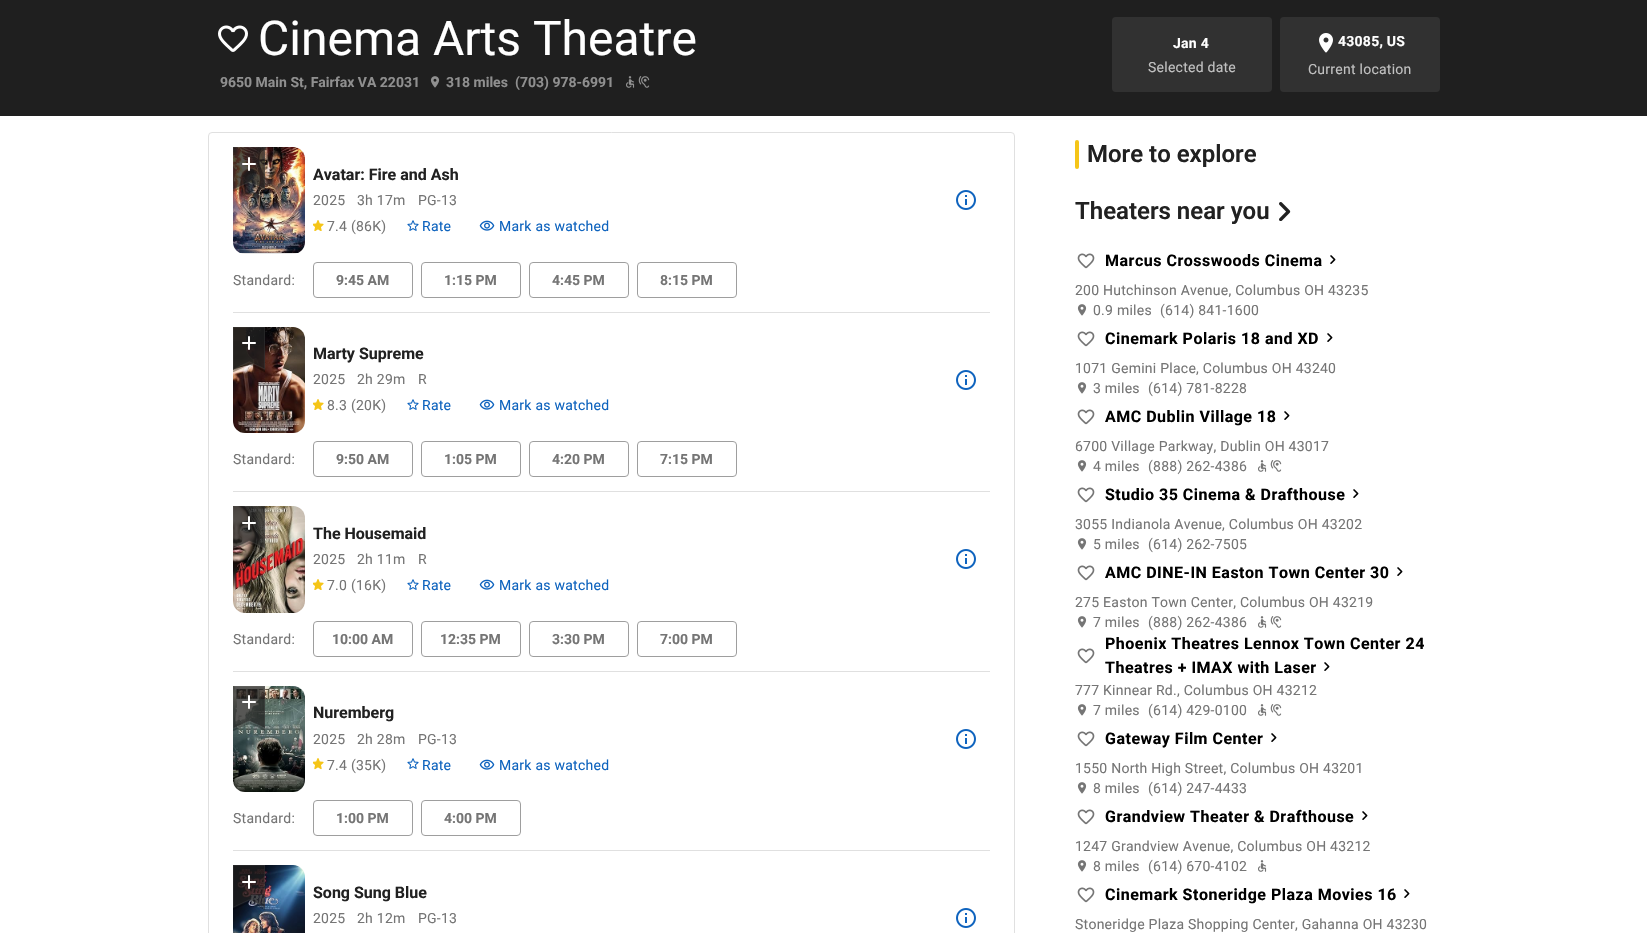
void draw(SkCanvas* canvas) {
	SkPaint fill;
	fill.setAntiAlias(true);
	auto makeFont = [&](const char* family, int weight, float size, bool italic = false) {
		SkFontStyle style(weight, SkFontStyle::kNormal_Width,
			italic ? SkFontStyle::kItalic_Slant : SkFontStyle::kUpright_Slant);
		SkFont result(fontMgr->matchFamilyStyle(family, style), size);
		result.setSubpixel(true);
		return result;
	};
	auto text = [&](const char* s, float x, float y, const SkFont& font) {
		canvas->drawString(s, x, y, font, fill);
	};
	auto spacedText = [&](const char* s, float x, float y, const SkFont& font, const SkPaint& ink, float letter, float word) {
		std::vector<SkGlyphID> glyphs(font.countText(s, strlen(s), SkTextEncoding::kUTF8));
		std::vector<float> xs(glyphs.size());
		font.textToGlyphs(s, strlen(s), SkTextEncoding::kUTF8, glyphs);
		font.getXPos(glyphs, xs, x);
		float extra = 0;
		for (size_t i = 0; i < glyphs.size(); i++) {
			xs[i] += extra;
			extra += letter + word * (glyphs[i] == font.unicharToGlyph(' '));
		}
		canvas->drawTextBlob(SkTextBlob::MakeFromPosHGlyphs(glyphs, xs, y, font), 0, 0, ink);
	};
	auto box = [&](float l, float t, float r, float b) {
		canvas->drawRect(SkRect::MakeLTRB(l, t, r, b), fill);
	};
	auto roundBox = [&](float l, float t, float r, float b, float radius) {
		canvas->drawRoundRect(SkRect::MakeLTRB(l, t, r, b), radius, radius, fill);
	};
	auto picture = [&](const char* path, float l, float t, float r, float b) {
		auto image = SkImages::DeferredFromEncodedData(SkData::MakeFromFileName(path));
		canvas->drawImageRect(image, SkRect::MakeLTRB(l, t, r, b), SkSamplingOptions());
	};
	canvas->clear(0xFFFFFFFF);
	fill.setColor(0xFF1F1F1F);
	box(0, 0, 1647, 116);
	picture("image0.png", 218, 25, 248, 52);
	picture("image1.png", 430, 76, 440, 88);
	picture("image2.png", 626, 76, 635, 88);
	picture("image3.png", 638, 76, 650, 88);
	fill.setColor(0xFF313131);
	roundBox(1112, 17, 1272, 92, 4);
	roundBox(1280, 17, 1440, 92, 4);
	picture("image4.png", 1319, 33, 1333, 53);
	fill.setStyle(SkPaint::kStroke_Style);
	fill.setStrokeWidth(1);
	fill.setColor(0xFFE0E0E0);
	canvas->drawRoundRect(SkRect::MakeLTRB(208.5f, 132.5f, 1014.5f, 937.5f), 3.5f, 3.5f, fill);
	fill.setStyle(SkPaint::kFill_Style);
	fill.setColor(0xFFE6E6E6);
	canvas->drawPath(SkPathBuilder().moveTo(233, 147).lineTo(293, 147).cubicTo(299.5f, 147, 305, 152.5f, 305, 159).lineTo(305, 242).cubicTo(305, 248.5f, 299.5f, 254, 293, 254).lineTo(245, 254).cubicTo(238.5f, 254, 233, 248.5f, 233, 242).close().detach(), fill);
	picture("image5.png", 233, 147, 305, 253);
	picture("image6.png", 233, 147, 265, 192);
	picture("image7.png", 242, 157, 256, 171);
	picture("image8.png", 313, 220, 324, 231);
	picture("image9.png", 407, 220, 419, 231);
	picture("image10.png", 479, 220, 495, 231);
	picture("image11.png", 956, 190, 976, 210);
	fill.setStyle(SkPaint::kStroke_Style);
	fill.setColor(0xFF9E9E9E);
	canvas->drawRoundRect(SkRect::MakeLTRB(313.5f, 262.5f, 412.5f, 297.5f), 3.5f, 3.5f, fill);
	canvas->drawRoundRect(SkRect::MakeLTRB(421.5f, 262.5f, 520.5f, 297.5f), 3.5f, 3.5f, fill);
	canvas->drawRoundRect(SkRect::MakeLTRB(529.5f, 262.5f, 628.5f, 297.5f), 3.5f, 3.5f, fill);
	canvas->drawRoundRect(SkRect::MakeLTRB(637.5f, 262.5f, 736.5f, 297.5f), 3.5f, 3.5f, fill);
	fill.setStyle(SkPaint::kFill_Style);
	fill.setColor(0xFFE0E0E0);
	box(233, 312, 990, 313);
	picture("image12.png", 233, 327, 305, 433);
	picture("image13.png", 233, 327, 265, 372);
	picture("image14.png", 242, 336, 256, 350);
	picture("image8.png", 313, 399, 324, 410);
	picture("image9.png", 407, 399, 419, 410);
	picture("image10.png", 479, 399, 495, 410);
	picture("image11.png", 956, 370, 976, 390);
	fill.setStyle(SkPaint::kStroke_Style);
	fill.setColor(0xFF9E9E9E);
	canvas->drawRoundRect(SkRect::MakeLTRB(313.5f, 441.5f, 412.5f, 476.5f), 3.5f, 3.5f, fill);
	canvas->drawRoundRect(SkRect::MakeLTRB(421.5f, 441.5f, 520.5f, 476.5f), 3.5f, 3.5f, fill);
	canvas->drawRoundRect(SkRect::MakeLTRB(529.5f, 441.5f, 628.5f, 476.5f), 3.5f, 3.5f, fill);
	canvas->drawRoundRect(SkRect::MakeLTRB(637.5f, 441.5f, 736.5f, 476.5f), 3.5f, 3.5f, fill);
	fill.setStyle(SkPaint::kFill_Style);
	fill.setColor(0xFFE0E0E0);
	box(233, 491, 990, 492);
	picture("image15.png", 233, 506, 305, 613);
	picture("image16.png", 233, 506, 265, 551);
	picture("image17.png", 242, 516, 256, 530);
	picture("image8.png", 313, 579, 324, 590);
	picture("image9.png", 407, 579, 419, 590);
	picture("image10.png", 479, 579, 495, 590);
	picture("image11.png", 956, 549, 976, 569);
	fill.setStyle(SkPaint::kStroke_Style);
	fill.setColor(0xFF9E9E9E);
	canvas->drawRoundRect(SkRect::MakeLTRB(313.5f, 621.5f, 412.5f, 656.5f), 3.5f, 3.5f, fill);
	canvas->drawRoundRect(SkRect::MakeLTRB(421.5f, 621.5f, 520.5f, 656.5f), 3.5f, 3.5f, fill);
	canvas->drawRoundRect(SkRect::MakeLTRB(529.5f, 621.5f, 628.5f, 656.5f), 3.5f, 3.5f, fill);
	canvas->drawRoundRect(SkRect::MakeLTRB(637.5f, 621.5f, 736.5f, 656.5f), 3.5f, 3.5f, fill);
	fill.setStyle(SkPaint::kFill_Style);
	fill.setColor(0xFFE0E0E0);
	box(233, 671, 990, 672);
	picture("image18.png", 233, 686, 305, 792);
	picture("image19.png", 233, 686, 265, 731);
	picture("image20.png", 242, 695, 256, 709);
	picture("image21.png", 313, 758, 324, 770);
	picture("image9.png", 407, 758, 419, 769);
	picture("image10.png", 479, 759, 495, 770);
	picture("image11.png", 956, 729, 976, 749);
	fill.setStyle(SkPaint::kStroke_Style);
	fill.setColor(0xFF9E9E9E);
	canvas->drawRoundRect(SkRect::MakeLTRB(313.5f, 800.5f, 412.5f, 835.5f), 3.5f, 3.5f, fill);
	canvas->drawRoundRect(SkRect::MakeLTRB(421.5f, 800.5f, 520.5f, 835.5f), 3.5f, 3.5f, fill);
	fill.setStyle(SkPaint::kFill_Style);
	fill.setColor(0xFFE0E0E0);
	box(233, 850, 990, 851);
	picture("image22.png", 233, 865, 305, 933);
	picture("image23.png", 233, 865, 265, 910);
	picture("image24.png", 242, 875, 256, 889);
	picture("image11.png", 956, 908, 976, 928);
	fill.setColor(0xFFF5C518);
	roundBox(1075, 140, 1079, 169, 2);
	picture("image25.png", 1279, 202, 1291, 221);
	picture("image26.png", 1077, 253, 1095, 269);
	picture("image27.png", 1330, 255, 1336, 264);
	picture("image28.png", 1077, 304, 1087, 316);
	picture("image26.png", 1077, 331, 1095, 347);
	picture("image27.png", 1327, 333, 1333, 342);
	picture("image28.png", 1077, 382, 1087, 394);
	picture("image26.png", 1077, 409, 1095, 425);
	picture("image27.png", 1284, 411, 1290, 420);
	picture("image28.png", 1077, 460, 1087, 472);
	picture("image29.png", 1258, 460, 1267, 472);
	picture("image30.png", 1270, 460, 1282, 472);
	picture("image26.png", 1077, 487, 1095, 503);
	picture("image27.png", 1353, 489, 1359, 498);
	picture("image28.png", 1077, 538, 1087, 550);
	picture("image26.png", 1077, 565, 1095, 581);
	picture("image27.png", 1397, 567, 1403, 576);
	picture("image28.png", 1077, 616, 1087, 628);
	picture("image29.png", 1258, 616, 1267, 628);
	picture("image30.png", 1270, 616, 1282, 628);
	picture("image26.png", 1077, 648, 1095, 664);
	picture("image27.png", 1324, 662, 1330, 671);
	picture("image28.png", 1077, 704, 1087, 716);
	picture("image29.png", 1258, 704, 1267, 716);
	picture("image30.png", 1270, 704, 1282, 716);
	picture("image26.png", 1077, 731, 1095, 747);
	picture("image27.png", 1271, 733, 1277, 742);
	picture("image28.png", 1077, 782, 1087, 794);
	picture("image26.png", 1077, 809, 1095, 825);
	picture("image27.png", 1362, 811, 1368, 820);
	picture("image28.png", 1077, 860, 1087, 872);
	picture("image29.png", 1258, 860, 1267, 872);
	picture("image26.png", 1077, 887, 1095, 903);
	picture("image27.png", 1404, 889, 1410, 898);
	auto font1 = makeFont("Roboto", 400, 48);
	fill.setColor(0xFFFFFFFF);
	text("Cinema Arts Theatre", 258, 55, font1);
	auto font2 = makeFont("Roboto", 700, 14);
	fill.setColor(0xFF8F8F8F);
	text("9650 Main St, Fairfax VA 22031", 220, 87, font2);
	text("318 miles", 446, 87, font2);
	text("(703) 978-6991", 515, 87, font2);
	fill.setColor(0xFFFFFFFF);
	spacedText("Jan 4", 1173, 48, font2, fill, 0.25f, 0);
	auto font3 = makeFont("Roboto", 400, 14);
	fill.setColor(0xFFC1C1C1);
	spacedText("Selected date", 1148, 72, font3, fill, 0.25f, 0);
	fill.setColor(0xFFFFFFFF);
	spacedText("43085, US", 1338, 46, font2, fill, 0.25f, 0);
	fill.setColor(0xFFC1C1C1);
	spacedText("Current location", 1308, 74, font3, fill, 0.25f, 0);
	auto font4 = makeFont("Roboto", 700, 16);
	fill.setColor(0xFF212121);
	text("Avatar: Fire and Ash", 313, 180, font4);
	fill.setColor(0xFF757575);
	spacedText("2025", 313, 205, font3, fill, 0.25f, 0);
	spacedText("3h 17m", 357, 205, font3, fill, 0.25f, 0);
	spacedText("PG-13", 418, 205, font3, fill, 0.25f, 0);
	spacedText("7.4 (86K)", 327, 231, font3, fill, 0.25f, 0);
	fill.setColor(0xFF0E63BE);
	spacedText("Rate", 422, 231, font3, fill, 0.25f, 0);
	spacedText("Mark as watched", 499, 231, font3, fill, 0.25f, 0);
	fill.setColor(0xFF757575);
	spacedText("Standard:", 233, 285, font3, fill, 0.25f, 0);
	text("9:45 AM", 336, 285, font2);
	text("1:15 PM", 444, 285, font2);
	text("4:45 PM", 552, 285, font2);
	text("8:15 PM", 660, 285, font2);
	fill.setColor(0xFF212121);
	text("Marty Supreme", 313, 359, font4);
	fill.setColor(0xFF757575);
	spacedText("2025", 313, 384, font3, fill, 0.25f, 0);
	spacedText("2h 29m", 357, 384, font3, fill, 0.25f, 0);
	spacedText("R", 418, 384, font3, fill, 0.25f, 0);
	spacedText("8.3 (20K)", 327, 410, font3, fill, 0.25f, 0);
	fill.setColor(0xFF0E63BE);
	spacedText("Rate", 422, 410, font3, fill, 0.25f, 0);
	spacedText("Mark as watched", 499, 410, font3, fill, 0.25f, 0);
	fill.setColor(0xFF757575);
	spacedText("Standard:", 233, 464, font3, fill, 0.25f, 0);
	text("9:50 AM", 336, 464, font2);
	text("1:05 PM", 444, 464, font2);
	text("4:20 PM", 552, 464, font2);
	text("7:15 PM", 660, 464, font2);
	canvas->save();
	canvas->clipRect(SkRect::MakeLTRB(313, 524, 426, 543));
	fill.setColor(0xFF212121);
	text("The Housemaid", 313, 539, font4);
	canvas->restore();
	fill.setColor(0xFF757575);
	spacedText("2025", 313, 564, font3, fill, 0.25f, 0);
	spacedText("2h 11m", 357, 564, font3, fill, 0.25f, 0);
	spacedText("R", 418, 564, font3, fill, 0.25f, 0);
	spacedText("7.0 (16K)", 327, 590, font3, fill, 0.25f, 0);
	fill.setColor(0xFF0E63BE);
	spacedText("Rate", 422, 590, font3, fill, 0.25f, 0);
	spacedText("Mark as watched", 499, 590, font3, fill, 0.25f, 0);
	fill.setColor(0xFF757575);
	spacedText("Standard:", 233, 644, font3, fill, 0.25f, 0);
	text("10:00 AM", 332, 644, font2);
	text("12:35 PM", 440, 644, font2);
	text("3:30 PM", 552, 644, font2);
	text("7:00 PM", 660, 644, font2);
	fill.setColor(0xFF212121);
	text("Nuremberg", 313, 718, font4);
	fill.setColor(0xFF757575);
	spacedText("2025", 313, 744, font3, fill, 0.25f, 0);
	spacedText("2h 28m", 357, 744, font3, fill, 0.25f, 0);
	spacedText("PG-13", 418, 744, font3, fill, 0.25f, 0);
	spacedText("7.4 (35K)", 327, 770, font3, fill, 0.25f, 0);
	fill.setColor(0xFF0E63BE);
	spacedText("Rate", 422, 770, font3, fill, 0.25f, 0);
	spacedText("Mark as watched", 499, 770, font3, fill, 0.25f, 0);
	fill.setColor(0xFF757575);
	spacedText("Standard:", 233, 823, font3, fill, 0.25f, 0);
	text("1:00 PM", 336, 823, font2);
	text("4:00 PM", 444, 823, font2);
	fill.setColor(0xFF212121);
	text("Song Sung Blue", 313, 898, font4);
	fill.setColor(0xFF757575);
	spacedText("2025", 313, 923, font3, fill, 0.25f, 0);
	spacedText("2h 12m", 357, 923, font3, fill, 0.25f, 0);
	spacedText("PG-13", 418, 923, font3, fill, 0.25f, 0);
	auto font5 = makeFont("Roboto", 600, 24);
	fill.setColor(0xFF212121);
	text("More to explore", 1087, 162, font5);
	text("Theaters near you", 1075, 219, font5);
	fill.setColor(0xFF000000);
	spacedText("Marcus Crosswoods Cinema", 1105, 266, font4, fill, 0.5f, 0);
	fill.setColor(0xFF757575);
	spacedText("200 Hutchinson Avenue, Columbus OH 43235", 1075, 295, font3, fill, 0.25f, 0);
	spacedText("0.9 miles", 1093, 315, font3, fill, 0.25f, 0);
	spacedText("(614) 841-1600", 1160, 315, font3, fill, 0.25f, 0);
	fill.setColor(0xFF000000);
	spacedText("Cinemark Polaris 18 and XD", 1105, 344, font4, fill, 0.5f, 0);
	fill.setColor(0xFF757575);
	spacedText("1071 Gemini Place, Columbus OH 43240", 1075, 373, font3, fill, 0.25f, 0);
	spacedText("3 miles", 1093, 393, font3, fill, 0.25f, 0);
	spacedText("(614) 781-8228", 1148, 393, font3, fill, 0.25f, 0);
	fill.setColor(0xFF000000);
	spacedText("AMC Dublin Village 18", 1105, 422, font4, fill, 0.5f, 0);
	fill.setColor(0xFF757575);
	spacedText("6700 Village Parkway, Dublin OH 43017", 1075, 451, font3, fill, 0.25f, 0);
	spacedText("4 miles", 1093, 471, font3, fill, 0.25f, 0);
	spacedText("(888) 262-4386", 1148, 471, font3, fill, 0.25f, 0);
	fill.setColor(0xFF000000);
	spacedText("Studio 35 Cinema & Drafthouse", 1105, 500, font4, fill, 0.5f, 0);
	fill.setColor(0xFF757575);
	spacedText("3055 Indianola Avenue, Columbus OH 43202", 1075, 529, font3, fill, 0.25f, 0);
	spacedText("5 miles", 1093, 549, font3, fill, 0.25f, 0);
	spacedText("(614) 262-7505", 1148, 549, font3, fill, 0.25f, 0);
	fill.setColor(0xFF000000);
	spacedText("AMC DINE-IN Easton Town Center 30", 1105, 578, font4, fill, 0.5f, 0);
	fill.setColor(0xFF757575);
	spacedText("275 Easton Town Center, Columbus OH 43219", 1075, 607, font3, fill, 0.25f, 0);
	spacedText("7 miles", 1093, 627, font3, fill, 0.25f, 0);
	spacedText("(888) 262-4386", 1148, 627, font3, fill, 0.25f, 0);
	fill.setColor(0xFF000000);
	spacedText("Phoenix Theatres Lennox Town Center 24", 1105, 649, font4, fill, 0.5f, 0);
	spacedText("Theatres + IMAX with Laser", 1105, 673, font4, fill, 0.5f, 0);
	fill.setColor(0xFF757575);
	spacedText("777 Kinnear Rd., Columbus OH 43212", 1075, 695, font3, fill, 0.25f, 0);
	spacedText("7 miles", 1093, 715, font3, fill, 0.25f, 0);
	spacedText("(614) 429-0100", 1148, 715, font3, fill, 0.25f, 0);
	fill.setColor(0xFF000000);
	spacedText("Gateway Film Center", 1105, 744, font4, fill, 0.5f, 0);
	fill.setColor(0xFF757575);
	spacedText("1550 North High Street, Columbus OH 43201", 1075, 773, font3, fill, 0.25f, 0);
	spacedText("8 miles", 1093, 793, font3, fill, 0.25f, 0);
	spacedText("(614) 247-4433", 1148, 793, font3, fill, 0.25f, 0);
	fill.setColor(0xFF000000);
	spacedText("Grandview Theater & Drafthouse", 1105, 822, font4, fill, 0.5f, 0);
	fill.setColor(0xFF757575);
	spacedText("1247 Grandview Avenue, Columbus OH 43212", 1075, 851, font3, fill, 0.25f, 0);
	spacedText("8 miles", 1093, 871, font3, fill, 0.25f, 0);
	spacedText("(614) 670-4102", 1148, 871, font3, fill, 0.25f, 0);
	fill.setColor(0xFF000000);
	spacedText("Cinemark Stoneridge Plaza Movies 16", 1105, 900, font4, fill, 0.5f, 0);
	fill.setColor(0xFF757575);
	spacedText("Stoneridge Plaza Shopping Center, Gahanna OH 43230", 1075, 929, font3, fill, 0.25f, 0);
}
